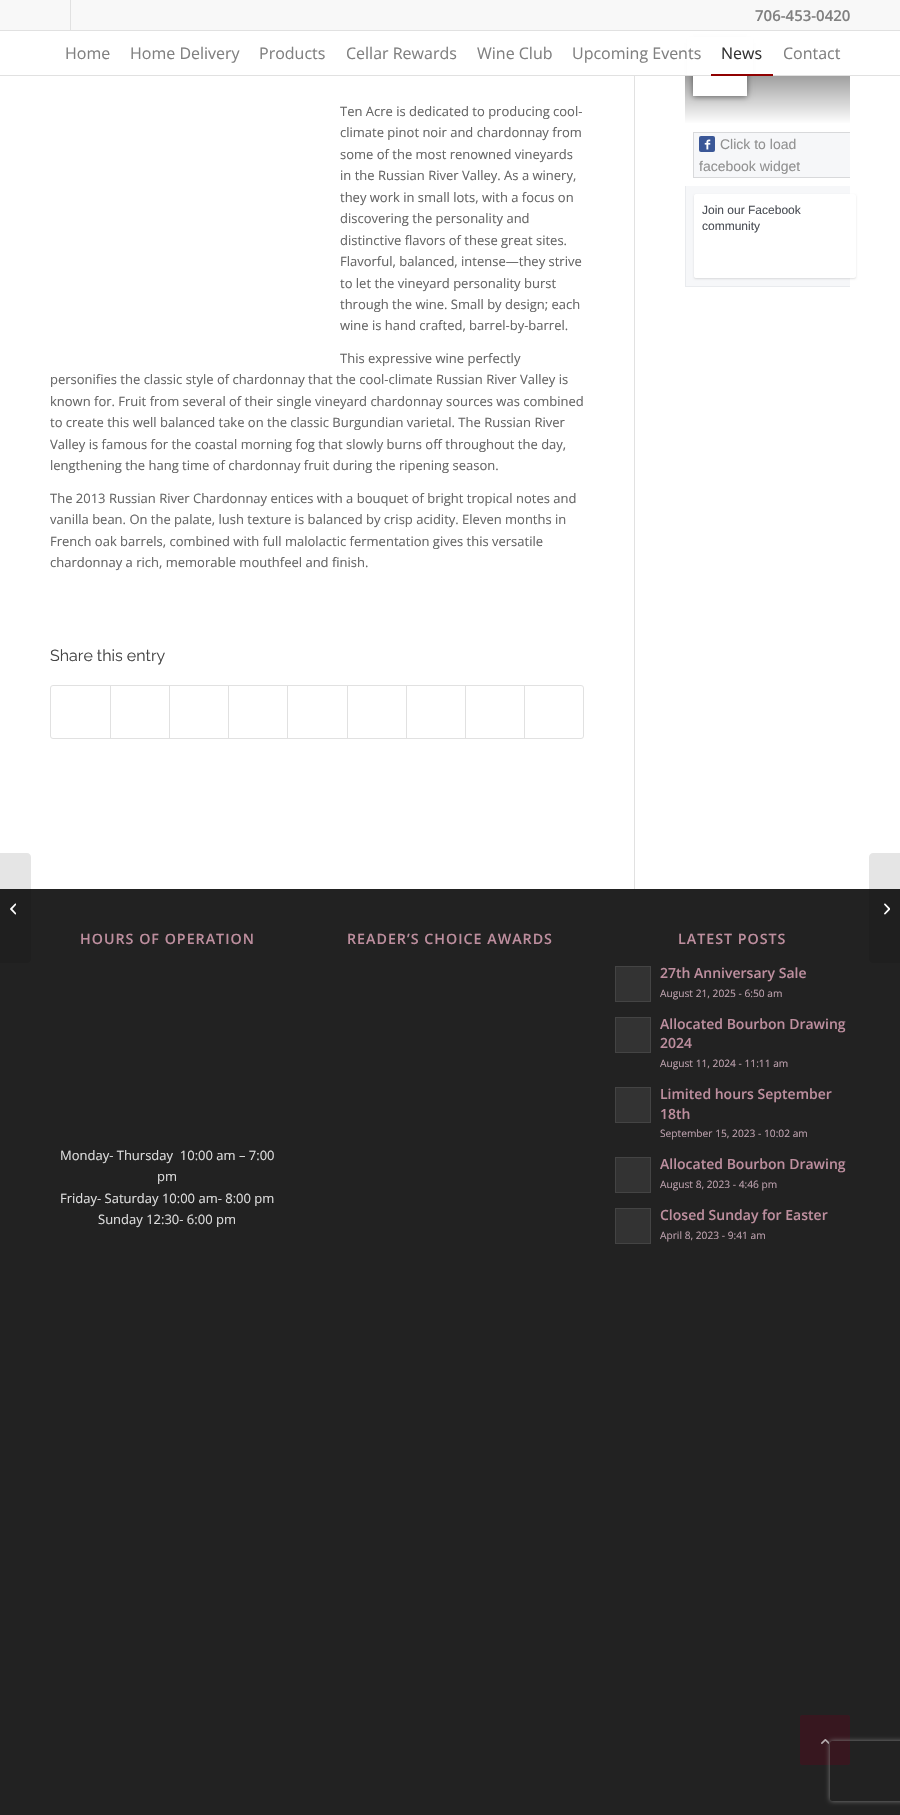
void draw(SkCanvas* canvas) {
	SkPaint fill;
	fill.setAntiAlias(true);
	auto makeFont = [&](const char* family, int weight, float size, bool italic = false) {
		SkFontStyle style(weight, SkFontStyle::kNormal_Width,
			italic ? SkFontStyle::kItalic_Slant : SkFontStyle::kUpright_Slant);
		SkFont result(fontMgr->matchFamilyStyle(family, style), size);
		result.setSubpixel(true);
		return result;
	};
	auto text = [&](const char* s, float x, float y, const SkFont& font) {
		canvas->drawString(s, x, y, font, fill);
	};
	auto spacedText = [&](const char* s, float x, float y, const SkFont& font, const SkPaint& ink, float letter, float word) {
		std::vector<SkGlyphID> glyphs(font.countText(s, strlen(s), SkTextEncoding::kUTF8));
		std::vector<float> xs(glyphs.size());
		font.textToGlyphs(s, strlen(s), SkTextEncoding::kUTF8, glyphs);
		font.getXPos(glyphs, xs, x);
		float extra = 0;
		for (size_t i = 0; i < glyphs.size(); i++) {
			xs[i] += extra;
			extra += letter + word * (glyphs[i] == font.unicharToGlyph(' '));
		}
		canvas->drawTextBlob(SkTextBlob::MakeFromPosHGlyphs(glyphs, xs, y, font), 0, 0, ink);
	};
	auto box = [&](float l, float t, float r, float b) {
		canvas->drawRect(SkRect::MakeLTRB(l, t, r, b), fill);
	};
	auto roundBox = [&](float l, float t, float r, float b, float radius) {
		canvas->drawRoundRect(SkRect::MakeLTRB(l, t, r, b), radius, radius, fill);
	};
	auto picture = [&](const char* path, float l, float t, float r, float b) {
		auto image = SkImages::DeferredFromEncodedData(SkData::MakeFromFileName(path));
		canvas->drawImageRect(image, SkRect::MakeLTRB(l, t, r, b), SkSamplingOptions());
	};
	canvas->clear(0xFFFFFFFF);
	fill.setColor(0xFFF8F8F8);
	box(0, 0, 900, 30);
	fill.setColor(0xFFE1E1E1);
	box(0, 30, 900, 31);
	box(70, 0, 71, 30);
	{
		const SkColor colors[] = {0xFF4D4D4D, 0xFFFFFFFF};
		const float stops[] = {0, 1};
		const SkPoint ends[] = {{775, 34}, {775, 124}};
		fill.setShader(SkGradientShader::MakeLinear(ends, colors, stops, 2, SkTileMode::kClamp));
		fill.setAlpha(255);
	}
	box(685, 76, 850, 123);
	fill.setShader(nullptr);
	fill.setColor(0x80000000);
	fill.setMaskFilter(SkMaskFilter::MakeBlur(kNormal_SkBlurStyle, 3));
	canvas->drawRect(SkRect::MakeLTRB(693, 43, 747, 97), fill);
	fill.setMaskFilter(nullptr);
	fill.setColor(0xFFFFFFFF);
	box(687, 37, 753, 75);
	fill.setColor(0xFFE1E1E1);
	box(0, 75, 900, 76);
	fill.setColor(0xFF900000);
	box(711, 74, 773, 76);
	fill.setColor(0xFF222222);
	box(0, 889, 900, 1815);
	fill.setColor(0x1A000000);
	canvas->drawPath(SkPathBuilder().moveTo(0, 853).lineTo(27, 853).cubicTo(29, 853, 31, 855, 31, 857).lineTo(31, 959).cubicTo(31, 961, 29, 963, 27, 963).lineTo(0, 963).close().detach(), fill);
	picture("image0.png", 10, 903, 16, 915);
	fill.setColor(0xFFE1E1E1);
	box(634, 76, 635, 889);
	fill.setStyle(SkPaint::kStroke_Style);
	fill.setStrokeWidth(1);
	canvas->drawRoundRect(SkRect::MakeLTRB(50.5f, 685.5f, 583.5f, 738.5f), 2.5f, 2.5f, fill);
	fill.setStyle(SkPaint::kFill_Style);
	box(110, 686, 111, 738);
	box(169, 686, 170, 738);
	box(228, 686, 229, 738);
	box(287, 686, 288, 738);
	box(347, 686, 348, 738);
	box(406, 686, 407, 738);
	box(465, 686, 466, 738);
	box(524, 686, 525, 738);
	fill.setColor(0xFFFFFFFF);
	box(693, 76, 747, 96);
	fill.setColor(0xFFF6F7F9);
	box(694, 133, 850, 177);
	canvas->save();
	canvas->clipRect(SkRect::MakeLTRB(635, 0, 850, 367));
	fill.setStyle(SkPaint::kStroke_Style);
	fill.setColor(0xFFD8D9DB);
	canvas->drawRect(SkRect::MakeLTRB(693.5f, 132.5f, 856.5f, 177.5f), fill);
	canvas->restore();
	fill.setStyle(SkPaint::kFill_Style);
	fill.setColor(0xFF3A5797);
	roundBox(699, 136, 715, 152, 2);
	picture("image1.png", 704, 139, 711, 150);
	fill.setColor(0xFFF6F7F9);
	box(686, 186, 850, 286);
	fill.setColor(0xFFE9EBEE);
	box(685, 286, 850, 287);
	box(685, 186, 686, 287);
	canvas->save();
	canvas->clipPath(SkPathBuilder(SkPathFillType::kEvenOdd).moveTo(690, 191).lineTo(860, 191).lineTo(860, 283).lineTo(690, 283).close().moveTo(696, 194).lineTo(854, 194).cubicTo(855, 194, 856, 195, 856, 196).lineTo(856, 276).cubicTo(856, 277, 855, 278, 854, 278).lineTo(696, 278).cubicTo(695, 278, 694, 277, 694, 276).lineTo(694, 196).cubicTo(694, 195, 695, 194, 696, 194).close().detach(), true);
	fill.setColor(0x1F000000);
	fill.setMaskFilter(SkMaskFilter::MakeBlur(kNormal_SkBlurStyle, 1));
	canvas->drawRoundRect(SkRect::MakeLTRB(694, 195, 856, 279), 2, 2, fill);
	fill.setMaskFilter(nullptr);
	canvas->restore();
	fill.setColor(0xFFFFFFFF);
	canvas->drawPath(SkPathBuilder().moveTo(696, 194).lineTo(850, 194).lineTo(850, 278).lineTo(696, 278).cubicTo(695, 278, 694, 277, 694, 276).lineTo(694, 196).cubicTo(694, 195, 695, 194, 696, 194).close().detach(), fill);
	fill.setColor(0xFF333333);
	canvas->drawRect(SkRect::MakeLTRB(615.5f, 966.5f, 650.5f, 1001.5f), fill);
	fill.setStyle(SkPaint::kStroke_Style);
	fill.setColor(0xFF444444);
	canvas->drawRect(SkRect::MakeLTRB(615.5f, 966.5f, 650.5f, 1001.5f), fill);
	fill.setStyle(SkPaint::kFill_Style);
	fill.setColor(0xFF333333);
	canvas->drawRect(SkRect::MakeLTRB(615.5f, 1017.5f, 650.5f, 1052.5f), fill);
	fill.setStyle(SkPaint::kStroke_Style);
	fill.setColor(0xFF444444);
	canvas->drawRect(SkRect::MakeLTRB(615.5f, 1017.5f, 650.5f, 1052.5f), fill);
	fill.setStyle(SkPaint::kFill_Style);
	fill.setColor(0xFF333333);
	canvas->drawRect(SkRect::MakeLTRB(615.5f, 1087.5f, 650.5f, 1122.5f), fill);
	fill.setStyle(SkPaint::kStroke_Style);
	fill.setColor(0xFF444444);
	canvas->drawRect(SkRect::MakeLTRB(615.5f, 1087.5f, 650.5f, 1122.5f), fill);
	fill.setStyle(SkPaint::kFill_Style);
	fill.setColor(0xFF333333);
	canvas->drawRect(SkRect::MakeLTRB(615.5f, 1157.5f, 650.5f, 1192.5f), fill);
	fill.setStyle(SkPaint::kStroke_Style);
	fill.setColor(0xFF444444);
	canvas->drawRect(SkRect::MakeLTRB(615.5f, 1157.5f, 650.5f, 1192.5f), fill);
	fill.setStyle(SkPaint::kFill_Style);
	fill.setColor(0xFF333333);
	canvas->drawRect(SkRect::MakeLTRB(615.5f, 1208.5f, 650.5f, 1243.5f), fill);
	fill.setStyle(SkPaint::kStroke_Style);
	fill.setColor(0xFF444444);
	canvas->drawRect(SkRect::MakeLTRB(615.5f, 1208.5f, 650.5f, 1243.5f), fill);
	fill.setStyle(SkPaint::kFill_Style);
	fill.setColor(0x1A000000);
	canvas->drawPath(SkPathBuilder().moveTo(873, 853).lineTo(900, 853).lineTo(900, 963).lineTo(873, 963).cubicTo(871, 963, 869, 961, 869, 959).lineTo(869, 857).cubicTo(869, 855, 871, 853, 873, 853).close().detach(), fill);
	picture("image2.png", 884, 903, 890, 915);
	fill.setColor(0xFF37171F);
	canvas->drawRoundRect(SkRect::MakeLTRB(800.5f, 1715.5f, 849.5f, 1764.5f), 1.5f, 1.5f, fill);
	fill.setStyle(SkPaint::kStroke_Style);
	canvas->drawRoundRect(SkRect::MakeLTRB(800.5f, 1715.5f, 849.5f, 1764.5f), 1.5f, 1.5f, fill);
	picture("image3.png", 821, 1739, 829, 1744);
	canvas->save();
	canvas->clipPath(SkPathBuilder(SkPathFillType::kEvenOdd).moveTo(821, 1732).lineTo(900, 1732).lineTo(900, 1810).lineTo(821, 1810).close().moveTo(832, 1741).lineTo(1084, 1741).cubicTo(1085, 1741, 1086, 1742, 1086, 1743).lineTo(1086, 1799).cubicTo(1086, 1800, 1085, 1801, 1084, 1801).lineTo(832, 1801).cubicTo(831, 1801, 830, 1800, 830, 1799).lineTo(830, 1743).cubicTo(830, 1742, 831, 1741, 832, 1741).close().detach(), true);
	fill.setStyle(SkPaint::kFill_Style);
	fill.setColor(0xFF808080);
	fill.setMaskFilter(SkMaskFilter::MakeBlur(kNormal_SkBlurStyle, 2.5f));
	canvas->drawRoundRect(SkRect::MakeLTRB(830, 1741, 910, 1801), 2, 2, fill);
	fill.setMaskFilter(nullptr);
	canvas->restore();
	auto font1 = makeFont("Open Sans", 600, 15);
	text("706-453-0420", 755, 21, font1);
	auto font2 = makeFont("Open Sans", 400, 16);
	text("Home", 65, 59, font2);
	text("Home Delivery", 130, 59, font2);
	text("Products", 259, 59, font2);
	text("Cellar Rewards", 346, 59, font2);
	text("Wine Club", 477, 59, font2);
	text("Upcoming Events", 572, 59, font2);
	fill.setColor(0xFF333333);
	text("News", 721, 59, font2);
	fill.setColor(0xFF808080);
	text("Contact", 783, 59, font2);
	auto font3 = makeFont("Open Sans", 400, 13);
	fill.setColor(0xFF666666);
	text("Ten Acre is dedicated to producing cool-", 340, 116, font3);
	text("climate pinot noir and chardonnay from", 340, 137, font3);
	text("some of the most renowned vineyards", 340, 159, font3);
	text("in the Russian River Valley. As a winery,", 340, 180, font3);
	text("they work in small lots, with a focus on", 340, 202, font3);
	text("discovering the personality and", 340, 223, font3);
	text("distinctive flavors of these great sites.", 340, 245, font3);
	text("Flavorful, balanced, intense—they strive", 340, 266, font3);
	text("to let the vineyard personality burst", 340, 288, font3);
	text("through the wine. Small by design; each", 340, 309, font3);
	text("wine is hand crafted, barrel-by-barrel.", 340, 330, font3);
	text("This expressive wine perfectly", 340, 363, font3);
	text("personifies the classic style of chardonnay that the cool-climate Russian River Valley is", 50, 384, font3);
	text("known for. Fruit from several of their single vineyard chardonnay sources was combined", 50, 406, font3);
	text("to create this well balanced take on the classic Burgundian varietal. The Russian River", 50, 427, font3);
	text("Valley is famous for the coastal morning fog that slowly burns off throughout the day,", 50, 449, font3);
	text("lengthening the hang time of chardonnay fruit during the ripening season.", 50, 470, font3);
	text("The 2013 Russian River Chardonnay entices with a bouquet of bright tropical notes and", 50, 503, font3);
	text("vanilla bean. On the palate, lush texture is balanced by crisp acidity. Eleven months in", 50, 524, font3);
	text("French oak barrels, combined with full malolactic fermentation gives this versatile", 50, 546, font3);
	text("chardonnay a rich, memorable mouthfeel and finish.", 50, 567, font3);
	auto font4 = makeFont("Raleway", 100, 16);
	fill.setColor(0xFF444444);
	text("Share this entry", 50, 661, font4);
	auto font5 = makeFont("Liberation Sans", 400, 14);
	fill.setColor(0xFF919191);
	text("Click to load", 720, 149, font5);
	text("facebook widget", 699, 171, font5);
	auto font6 = makeFont("Liberation Sans", 400, 12);
	fill.setColor(0xFF4B4F56);
	text("Join our Facebook", 702, 214, font6);
	text("community", 702, 230, font6);
	auto font7 = makeFont("Open Sans", 600, 14.25f);
	fill.setColor(0xFFBD8E9E);
	spacedText("HOURS OF OPERATION", 80, 944, font7, fill, 1, 0);
	fill.setColor(0xFFDDDDDD);
	text("Monday- Thursday  10:00 am – 7:00", 60, 1160, font3);
	text("pm", 157, 1181, font3);
	text("Friday- Saturday 10:00 am- 8:00 pm", 60, 1203, font3);
	text("Sunday 12:30- 6:00 pm", 98, 1224, font3);
	fill.setColor(0xFFBD8E9E);
	spacedText("READER’S CHOICE AWARDS", 347, 944, font7, fill, 1, 0);
	spacedText("LATEST POSTS", 678, 944, font7, fill, 1, 0);
	auto font8 = makeFont("Open Sans", 600, 14);
	text("27th Anniversary Sale", 660, 978, font8);
	auto font9 = makeFont("Open Sans", 400, 10.2f);
	fill.setColor(0xFFBDA1AE);
	text("August 21, 2025 - 6:50 am", 660, 997, font9);
	fill.setColor(0xFFBD8E9E);
	text("Allocated Bourbon Drawing", 660, 1029, font8);
	text("2024", 660, 1048, font8);
	fill.setColor(0xFFBDA1AE);
	text("August 11, 2024 - 11:11 am", 660, 1067, font9);
	fill.setColor(0xFFBD8E9E);
	text("Limited hours September", 660, 1099, font8);
	text("18th", 660, 1119, font8);
	fill.setColor(0xFFBDA1AE);
	text("September 15, 2023 - 10:02 am", 660, 1137, font9);
	fill.setColor(0xFFBD8E9E);
	text("Allocated Bourbon Drawing", 660, 1169, font8);
	fill.setColor(0xFFBDA1AE);
	text("August 8, 2023 - 4:46 pm", 660, 1188, font9);
	fill.setColor(0xFFBD8E9E);
	text("Closed Sunday for Easter", 660, 1220, font8);
	fill.setColor(0xFFBDA1AE);
	text("April 8, 2023 - 9:41 am", 660, 1239, font9);
}
